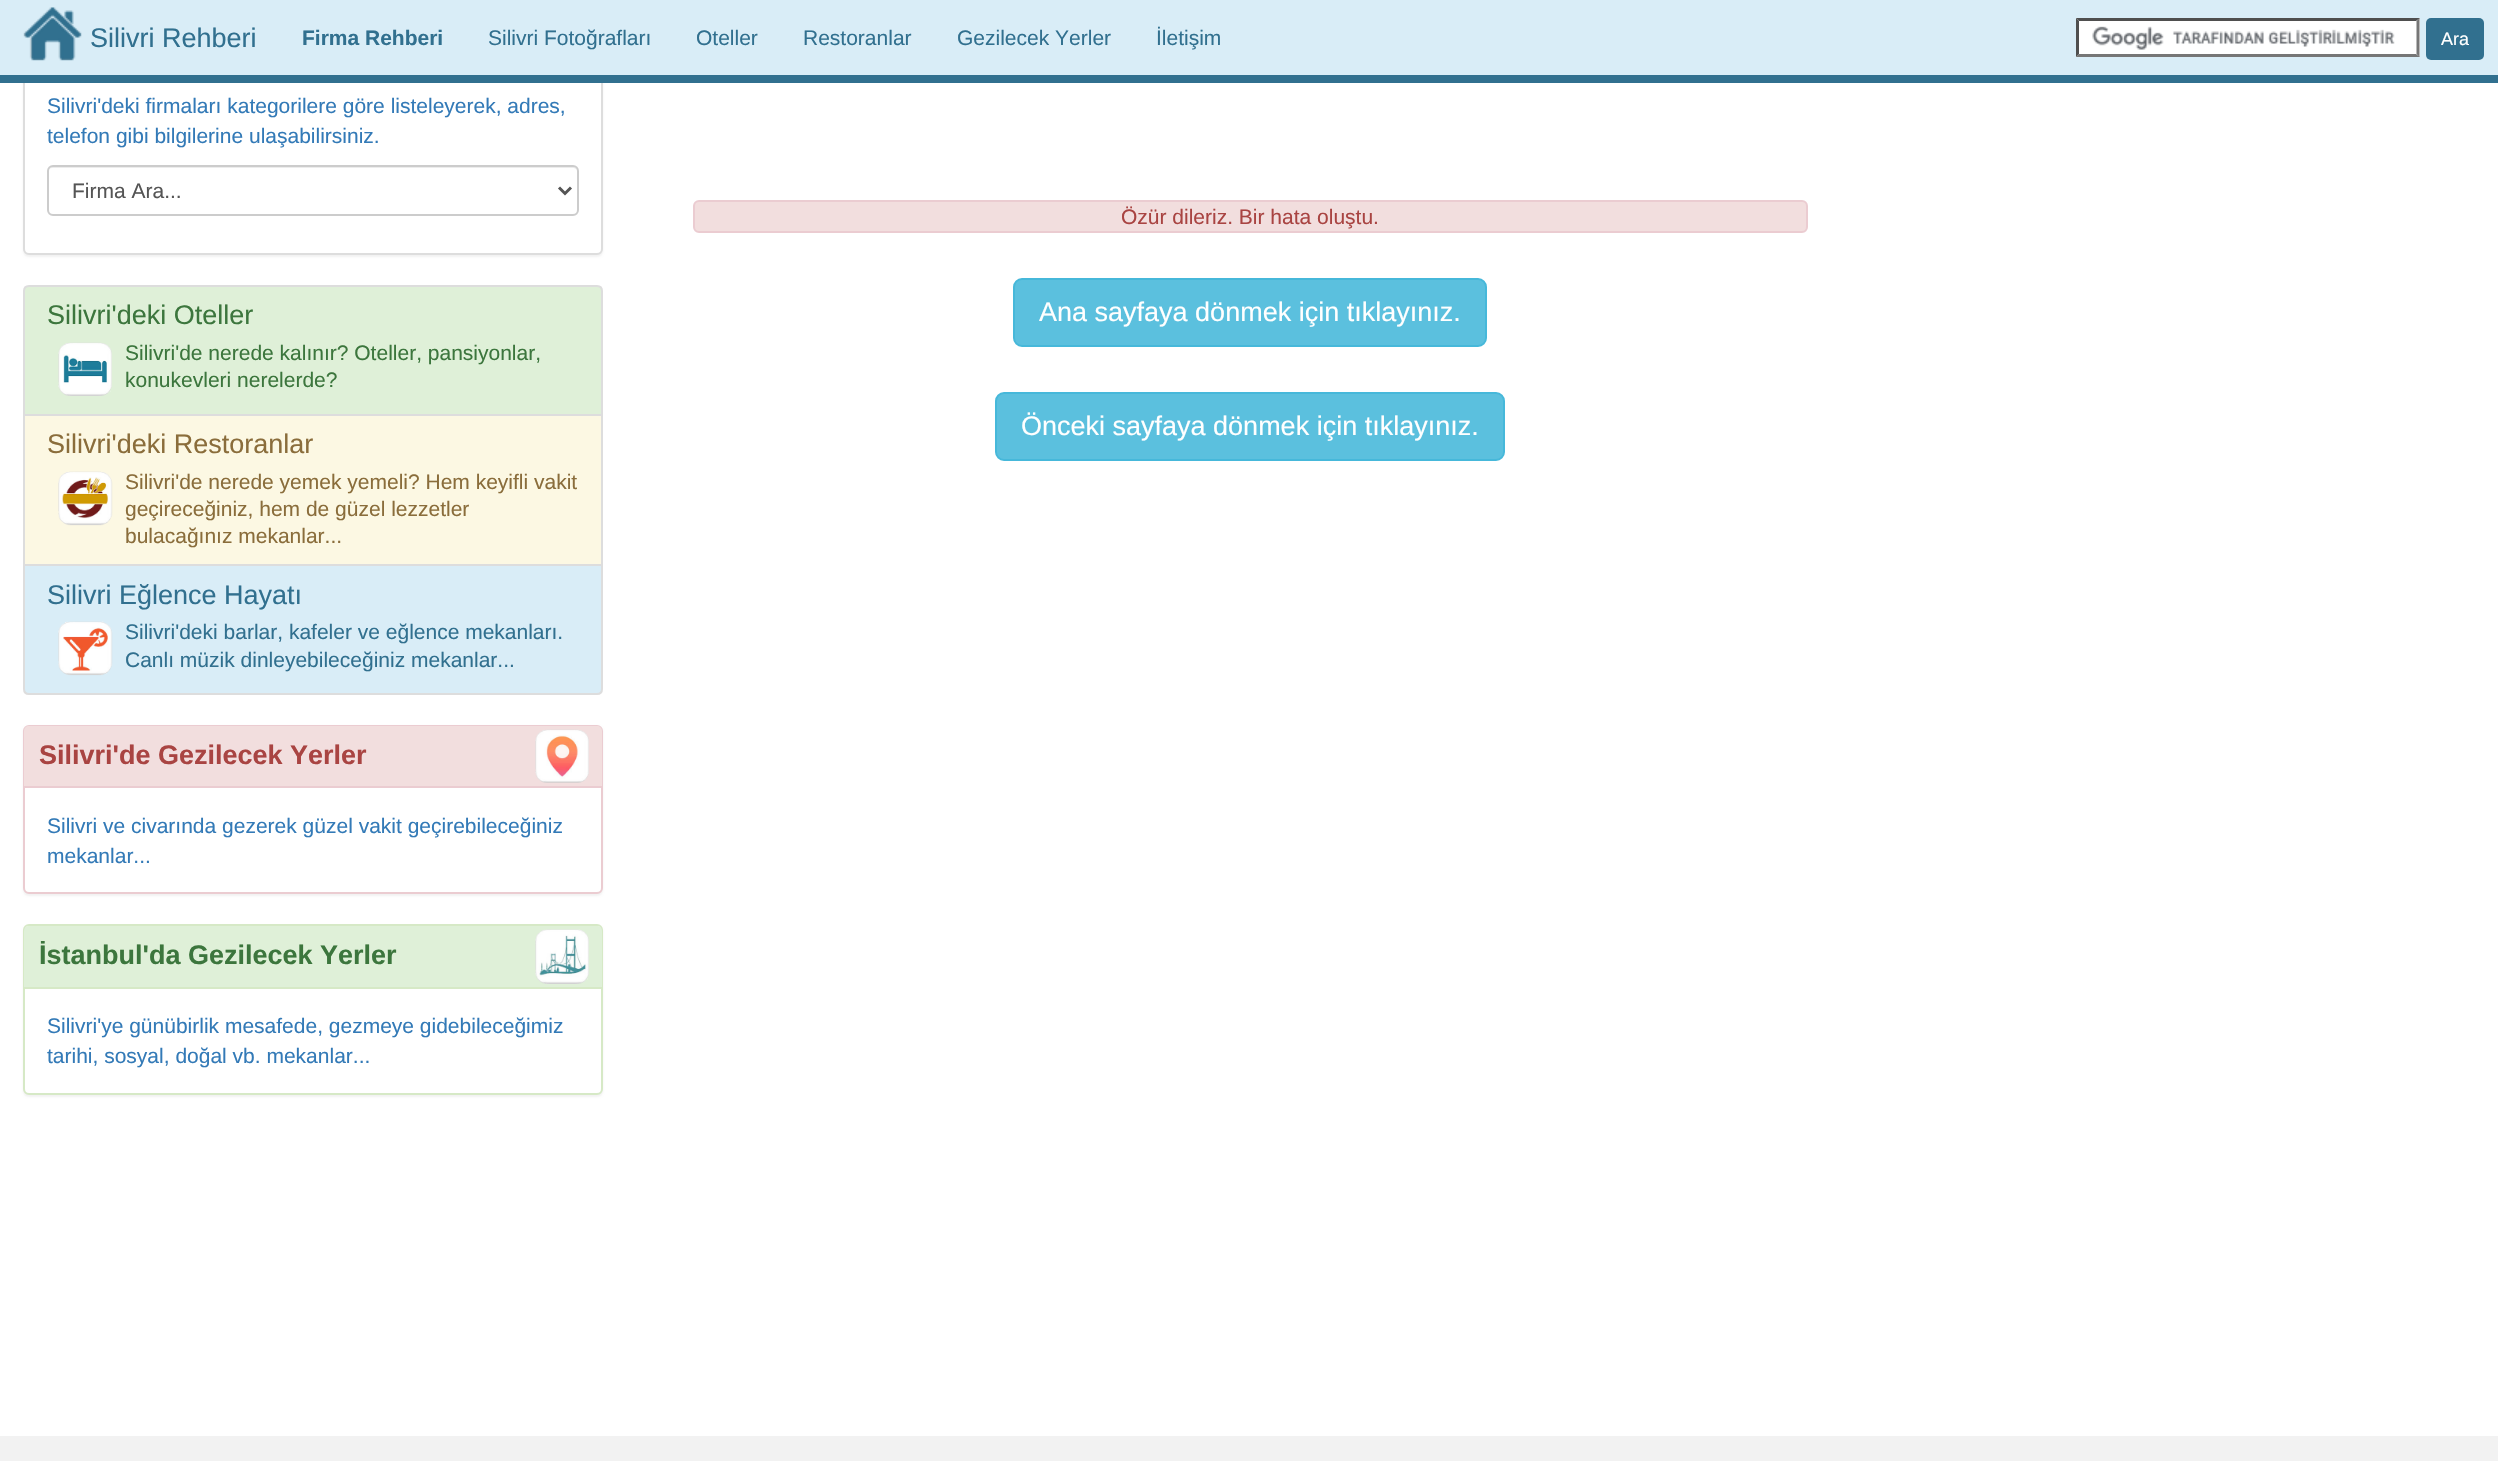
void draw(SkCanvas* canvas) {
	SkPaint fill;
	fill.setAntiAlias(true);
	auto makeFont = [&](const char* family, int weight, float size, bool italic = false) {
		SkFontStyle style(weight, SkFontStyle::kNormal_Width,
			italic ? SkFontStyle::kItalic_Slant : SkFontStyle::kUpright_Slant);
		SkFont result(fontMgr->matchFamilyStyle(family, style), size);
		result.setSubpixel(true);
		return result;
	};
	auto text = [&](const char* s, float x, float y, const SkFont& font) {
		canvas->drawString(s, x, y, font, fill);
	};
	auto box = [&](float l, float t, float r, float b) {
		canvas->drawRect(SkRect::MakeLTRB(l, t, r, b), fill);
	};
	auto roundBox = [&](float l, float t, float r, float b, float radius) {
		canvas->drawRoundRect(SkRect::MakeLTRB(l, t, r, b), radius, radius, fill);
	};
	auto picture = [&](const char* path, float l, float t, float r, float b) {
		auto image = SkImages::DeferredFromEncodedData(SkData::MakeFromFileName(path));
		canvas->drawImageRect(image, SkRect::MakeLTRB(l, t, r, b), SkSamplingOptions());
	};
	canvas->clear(0xFFFFFFFF);
	fill.setColor(0x0D000000);
	fill.setMaskFilter(SkMaskFilter::MakeBlur(kNormal_SkBlurStyle, 1));
	canvas->drawRoundRect(SkRect::MakeLTRB(23, 6, 603, 257), 6, 6, fill);
	fill.setMaskFilter(nullptr);
	fill.setColor(0xFFFFFFFF);
	canvas->drawRoundRect(SkRect::MakeLTRB(24, 6, 602, 254), 5, 5, fill);
	fill.setStyle(SkPaint::kStroke_Style);
	fill.setStrokeWidth(2);
	fill.setColor(0xFFDDDDDD);
	canvas->drawRoundRect(SkRect::MakeLTRB(24, 6, 602, 254), 5, 5, fill);
	fill.setStyle(SkPaint::kFill_Style);
	fill.setColor(0xFFD9EDF7);
	box(0, 0, 2498, 75);
	fill.setColor(0xFF31708F);
	box(0, 75, 2498, 83);
	picture("image0.png", 23, 7, 82, 61);
	fill.setColor(0xFFFFFFFF);
	box(2076, 18, 2420, 57);
	picture("image1.png", 2092, 26, 2395, 50);
	fill.setColor(0xFF4F4F4F);
	canvas->drawPath(SkPathBuilder().moveTo(2076, 18).lineTo(2420, 18).lineTo(2416, 21).lineTo(2079, 21).close().detach(), fill);
	fill.setColor(0xFF767676);
	canvas->drawPath(SkPathBuilder().moveTo(2419.5f, 18).lineTo(2419.5f, 57).lineTo(2416.5f, 54).lineTo(2416.5f, 21).close().detach(), fill);
	canvas->drawPath(SkPathBuilder().moveTo(2420, 57).lineTo(2076, 57).lineTo(2079, 54).lineTo(2416, 54).close().detach(), fill);
	fill.setColor(0xFF4F4F4F);
	canvas->drawPath(SkPathBuilder().moveTo(2076, 57).lineTo(2076, 18).lineTo(2079, 21).lineTo(2079, 54).close().detach(), fill);
	fill.setColor(0xFF31708F);
	roundBox(2426, 18, 2484, 60, 5);
	fill.setColor(0xFFECECEC);
	canvas->drawPath(SkPathBuilder().moveTo(52, 168).lineTo(573, 168).cubicTo(575, 168, 578, 170, 578, 172).cubicTo(578, 169, 576, 167, 573, 167).lineTo(53, 167).cubicTo(50, 167, 48, 169, 48, 172).cubicTo(48, 170, 50, 168, 52, 168).close().detach(), fill);
	fill.setStyle(SkPaint::kStroke_Style);
	fill.setColor(0xFFCCCCCC);
	canvas->drawRoundRect(SkRect::MakeLTRB(48, 166, 578, 215), 5, 5, fill);
	fill.setStrokeWidth(3);
	fill.setColor(0xFF555555);
	canvas->drawPath(SkPathBuilder().moveTo(559, 187.5f).lineTo(565, 193.5f).lineTo(571, 187.5f).detach(), fill);
	fill.setStyle(SkPaint::kFill_Style);
	fill.setColor(0xFFDFF0D8);
	canvas->drawPath(SkPathBuilder().moveTo(29, 286).lineTo(597, 286).cubicTo(600, 286, 602, 288, 602, 291).lineTo(602, 415).lineTo(24, 415).lineTo(24, 291).cubicTo(24, 288, 26, 286, 29, 286).close().detach(), fill);
	fill.setStyle(SkPaint::kStroke_Style);
	fill.setStrokeWidth(2);
	fill.setColor(0xFFDDDDDD);
	canvas->drawPath(SkPathBuilder().moveTo(29, 286).lineTo(597, 286).cubicTo(600, 286, 602, 288, 602, 291).lineTo(602, 415).lineTo(24, 415).lineTo(24, 291).cubicTo(24, 288, 26, 286, 29, 286).close().detach(), fill);
	picture("image2.png", 58, 342, 112, 396);
	fill.setStyle(SkPaint::kFill_Style);
	fill.setColor(0xFFFCF8E3);
	canvas->drawRect(SkRect::MakeLTRB(24, 415, 602, 565), fill);
	fill.setStyle(SkPaint::kStroke_Style);
	fill.setColor(0xFFDDDDDD);
	canvas->drawRect(SkRect::MakeLTRB(24, 415, 602, 565), fill);
	picture("image3.png", 58, 471, 113, 526);
	fill.setStyle(SkPaint::kFill_Style);
	fill.setColor(0xFFD9EDF7);
	canvas->drawPath(SkPathBuilder().moveTo(24, 565).lineTo(602, 565).lineTo(602, 689).cubicTo(602, 692, 600, 694, 597, 694).lineTo(29, 694).cubicTo(26, 694, 24, 692, 24, 689).close().detach(), fill);
	fill.setStyle(SkPaint::kStroke_Style);
	fill.setColor(0xFFDDDDDD);
	canvas->drawPath(SkPathBuilder().moveTo(24, 565).lineTo(602, 565).lineTo(602, 689).cubicTo(602, 692, 600, 694, 597, 694).lineTo(29, 694).cubicTo(26, 694, 24, 692, 24, 689).close().detach(), fill);
	picture("image4.png", 58, 621, 113, 676);
	fill.setStyle(SkPaint::kFill_Style);
	fill.setColor(0x0D000000);
	fill.setMaskFilter(SkMaskFilter::MakeBlur(kNormal_SkBlurStyle, 1));
	canvas->drawRoundRect(SkRect::MakeLTRB(23, 726, 603, 896), 6, 6, fill);
	fill.setMaskFilter(nullptr);
	fill.setColor(0xFFFFFFFF);
	canvas->drawRoundRect(SkRect::MakeLTRB(24, 726, 602, 893), 5, 5, fill);
	fill.setStyle(SkPaint::kStroke_Style);
	fill.setColor(0xFFEBCCD1);
	canvas->drawRoundRect(SkRect::MakeLTRB(24, 726, 602, 893), 5, 5, fill);
	fill.setStyle(SkPaint::kFill_Style);
	fill.setColor(0xFFF2DEDE);
	canvas->drawPath(SkPathBuilder().moveTo(29, 726).lineTo(597, 726).cubicTo(600, 726, 602, 728, 602, 731).lineTo(602, 788).lineTo(24, 788).lineTo(24, 731).cubicTo(24, 728, 26, 726, 29, 726).close().detach(), fill);
	fill.setColor(0xFFEBCCD1);
	box(24, 786, 602, 788);
	picture("image5.png", 535, 729, 589, 783);
	fill.setColor(0x0D000000);
	fill.setMaskFilter(SkMaskFilter::MakeBlur(kNormal_SkBlurStyle, 1));
	canvas->drawRoundRect(SkRect::MakeLTRB(23, 926, 603, 1097), 6, 6, fill);
	fill.setMaskFilter(nullptr);
	fill.setColor(0xFFFFFFFF);
	canvas->drawRoundRect(SkRect::MakeLTRB(24, 925, 602, 1094), 5, 5, fill);
	fill.setStyle(SkPaint::kStroke_Style);
	fill.setColor(0xFFD6E9C6);
	canvas->drawRoundRect(SkRect::MakeLTRB(24, 925, 602, 1094), 5, 5, fill);
	fill.setStyle(SkPaint::kFill_Style);
	fill.setColor(0xFFDFF0D8);
	canvas->drawPath(SkPathBuilder().moveTo(29, 926).lineTo(597, 926).cubicTo(600, 926, 602, 928, 602, 931).lineTo(602, 989).lineTo(24, 989).lineTo(24, 931).cubicTo(24, 928, 26, 926, 29, 926).close().detach(), fill);
	fill.setColor(0xFFD6E9C6);
	box(24, 987, 602, 989);
	picture("image6.png", 535, 929, 589, 984);
	fill.setColor(0xFFF2DEDE);
	canvas->drawRoundRect(SkRect::MakeLTRB(694, 201, 1807, 232), 5, 5, fill);
	fill.setStyle(SkPaint::kStroke_Style);
	fill.setColor(0xFFEBCCD1);
	canvas->drawRoundRect(SkRect::MakeLTRB(694, 201, 1807, 232), 5, 5, fill);
	fill.setStyle(SkPaint::kFill_Style);
	fill.setColor(0xFF5BC0DE);
	canvas->drawRoundRect(SkRect::MakeLTRB(1014, 279, 1486, 346), 8, 8, fill);
	fill.setStyle(SkPaint::kStroke_Style);
	fill.setColor(0xFF46B8DA);
	canvas->drawRoundRect(SkRect::MakeLTRB(1014, 279, 1486, 346), 8, 8, fill);
	fill.setStyle(SkPaint::kFill_Style);
	fill.setColor(0xFF5BC0DE);
	canvas->drawRoundRect(SkRect::MakeLTRB(996, 393, 1504, 460), 8, 8, fill);
	fill.setStyle(SkPaint::kStroke_Style);
	fill.setColor(0xFF46B8DA);
	canvas->drawRoundRect(SkRect::MakeLTRB(996, 393, 1504, 460), 8, 8, fill);
	fill.setStyle(SkPaint::kFill_Style);
	fill.setColor(0xFFF2F2F2);
	box(0, 1436, 2498, 1461);
	auto font1 = makeFont("Liberation Sans", 400, 27);
	fill.setColor(0xFF31708F);
	text("Silivri Rehberi", 90, 47, font1);
	auto font2 = makeFont("Liberation Sans", 700, 21);
	text("Firma Rehberi", 302, 45, font2);
	auto font3 = makeFont("Liberation Sans", 400, 21);
	text("Silivri Fotoğrafları", 488, 45, font3);
	text("Oteller", 696, 45, font3);
	text("Restoranlar", 803, 45, font3);
	text("Gezilecek Yerler", 957, 45, font3);
	text("İletişim", 1156, 45, font3);
	auto font4 = makeFont("Liberation Sans", 400, 18);
	fill.setColor(0xFFFFFFFF);
	text("Ara", 2441, 45, font4);
	fill.setColor(0xFF337AB7);
	text("Silivri'deki firmaları kategorilere göre listeleyerek, adres,", 47, 113, font3);
	text("telefon gibi bilgilerine ulaşabilirsiniz.", 47, 143, font3);
	fill.setColor(0xFF555555);
	text("Firma Ara...", 72, 198, font3);
	fill.setColor(0xFF3C763D);
	text("Silivri'deki Oteller", 47, 324, font1);
	text("Silivri'de nerede kalınır? Oteller, pansiyonlar,", 125, 360, font3);
	text("konukevleri nerelerde?", 125, 387, font3);
	fill.setColor(0xFF8A6D3B);
	text("Silivri'deki Restoranlar", 47, 453, font1);
	text("Silivri'de nerede yemek yemeli? Hem keyifli vakit", 125, 489, font3);
	text("geçireceğiniz, hem de güzel lezzetler", 125, 516, font3);
	text("bulacağınız mekanlar...", 125, 543, font3);
	fill.setColor(0xFF31708F);
	text("Silivri Eğlence Hayatı", 47, 604, font1);
	text("Silivri'deki barlar, kafeler ve eğlence mekanları.", 125, 639, font3);
	text("Canlı müzik dinleyebileceğiniz mekanlar...", 125, 667, font3);
	auto font5 = makeFont("Liberation Sans", 700, 27);
	fill.setColor(0xFFA94442);
	text("Silivri'de Gezilecek Yerler", 39, 764, font5);
	fill.setColor(0xFF337AB7);
	text("Silivri ve civarında gezerek güzel vakit geçirebileceğiniz", 47, 833, font3);
	text("mekanlar...", 47, 863, font3);
	fill.setColor(0xFF3C763D);
	text("İstanbul'da Gezilecek Yerler", 39, 964, font5);
	fill.setColor(0xFF337AB7);
	text("Silivri'ye günübirlik mesafede, gezmeye gidebileceğimiz", 47, 1033, font3);
	text("tarihi, sosyal, doğal vb. mekanlar...", 47, 1063, font3);
	fill.setColor(0xFFA94442);
	text("Özür dileriz. Bir hata oluştu.", 1121, 224, font3);
	fill.setColor(0xFFFFFFFF);
	text("Ana sayfaya dönmek için tıklayınız.", 1039, 321, font1);
	text("Önceki sayfaya dönmek için tıklayınız.", 1021, 435, font1);
}
